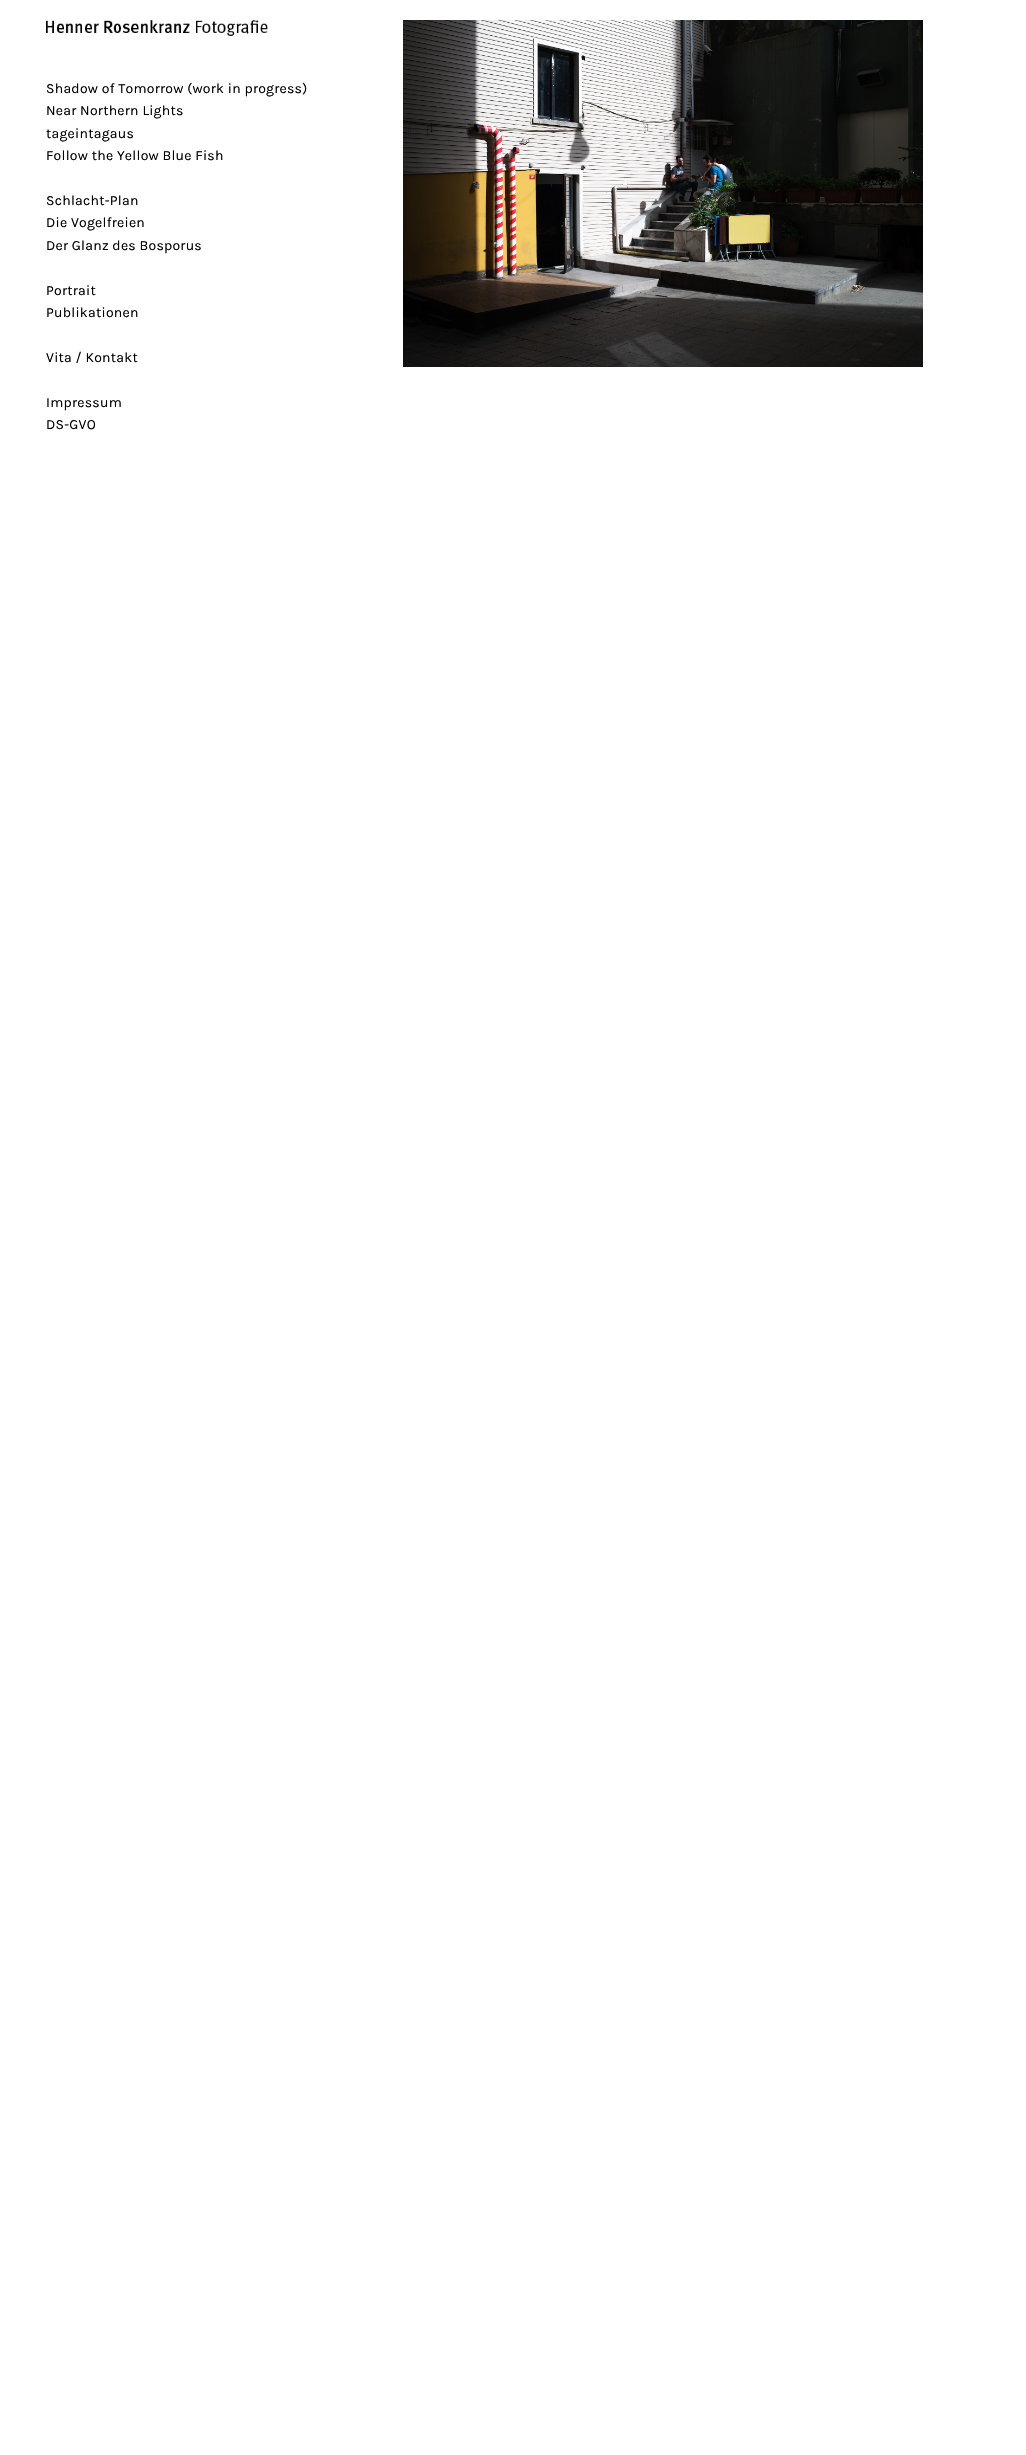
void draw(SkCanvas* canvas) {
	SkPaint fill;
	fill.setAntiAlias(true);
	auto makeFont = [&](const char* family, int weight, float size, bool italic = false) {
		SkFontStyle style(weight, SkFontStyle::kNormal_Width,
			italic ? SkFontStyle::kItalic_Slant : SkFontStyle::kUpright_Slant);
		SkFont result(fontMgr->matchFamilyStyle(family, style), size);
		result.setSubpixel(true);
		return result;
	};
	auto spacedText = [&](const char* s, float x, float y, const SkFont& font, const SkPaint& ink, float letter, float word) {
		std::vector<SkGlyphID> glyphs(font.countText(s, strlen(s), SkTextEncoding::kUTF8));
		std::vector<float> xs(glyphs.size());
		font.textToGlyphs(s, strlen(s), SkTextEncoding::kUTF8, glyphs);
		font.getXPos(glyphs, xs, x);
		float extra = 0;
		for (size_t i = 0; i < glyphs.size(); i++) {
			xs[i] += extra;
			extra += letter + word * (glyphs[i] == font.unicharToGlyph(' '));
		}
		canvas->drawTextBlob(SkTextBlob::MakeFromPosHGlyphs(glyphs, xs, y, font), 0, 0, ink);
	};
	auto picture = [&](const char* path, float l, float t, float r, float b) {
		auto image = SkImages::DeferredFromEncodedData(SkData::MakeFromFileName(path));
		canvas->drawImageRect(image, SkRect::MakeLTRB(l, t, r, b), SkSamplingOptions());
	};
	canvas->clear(0xFFFFFFFF);
	picture("image0.png", 46, 20, 268, 36);
	picture("image1.png", 403, 20, 923, 367);
	auto font1 = makeFont("Karla", 400, 14);
	fill.setColor(0xFF000000);
	spacedText("Shadow of Tomorrow (work in progress)", 46, 93, font1, fill, 0.25f, 0);
	spacedText("Near Northern Lights", 46, 115, font1, fill, 0.25f, 0);
	spacedText("tageintagaus", 46, 138, font1, fill, 0.25f, 0);
	spacedText("Follow the Yellow Blue Fish", 46, 160, font1, fill, 0.25f, 0);
	spacedText("Schlacht-Plan", 46, 205, font1, fill, 0.25f, 0);
	spacedText("Die Vogelfreien", 46, 227, font1, fill, 0.25f, 0);
	spacedText("Der Glanz des Bosporus", 46, 250, font1, fill, 0.25f, 0);
	spacedText("Portrait", 46, 295, font1, fill, 0.25f, 0);
	spacedText("Publikationen", 46, 317, font1, fill, 0.25f, 0);
	spacedText("Vita / Kontakt", 46, 362, font1, fill, 0.25f, 0);
	spacedText("Impressum", 46, 407, font1, fill, 0.25f, 0);
	spacedText("DS-GVO", 46, 429, font1, fill, 0.25f, 0);
}
